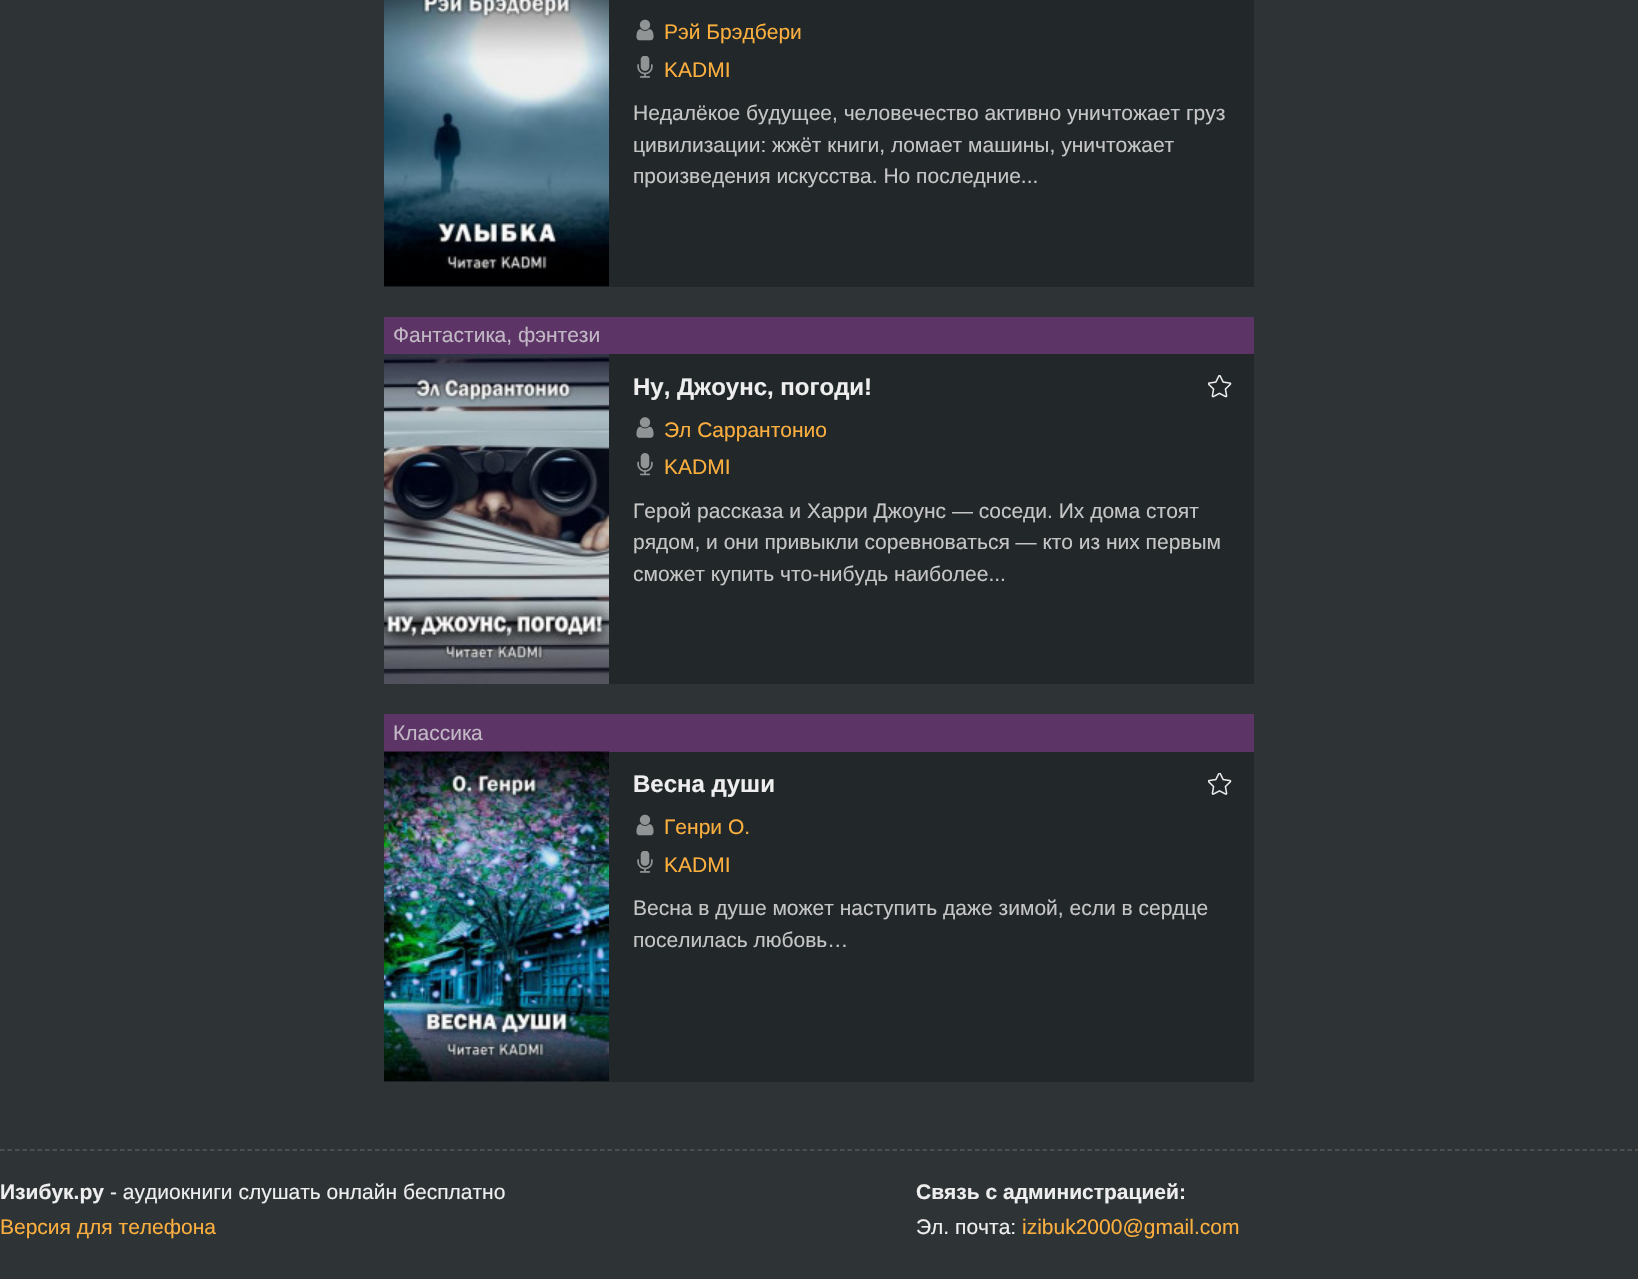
void draw(SkCanvas* canvas) {
	SkPaint fill;
	fill.setAntiAlias(true);
	auto makeFont = [&](const char* family, int weight, float size, bool italic = false) {
		SkFontStyle style(weight, SkFontStyle::kNormal_Width,
			italic ? SkFontStyle::kItalic_Slant : SkFontStyle::kUpright_Slant);
		SkFont result(fontMgr->matchFamilyStyle(family, style), size);
		result.setSubpixel(true);
		return result;
	};
	auto text = [&](const char* s, float x, float y, const SkFont& font) {
		canvas->drawString(s, x, y, font, fill);
	};
	auto box = [&](float l, float t, float r, float b) {
		canvas->drawRect(SkRect::MakeLTRB(l, t, r, b), fill);
	};
	auto picture = [&](const char* path, float l, float t, float r, float b) {
		auto image = SkImages::DeferredFromEncodedData(SkData::MakeFromFileName(path));
		canvas->drawImageRect(image, SkRect::MakeLTRB(l, t, r, b), SkSamplingOptions());
	};
	canvas->clear(0xFF2E3436);
	fill.setColor(0xFF22282A);
	box(384, 0, 1254, 287);
	picture("image0.png", 384, 0, 609, 287);
	picture("image1.png", 636, 19, 654, 41);
	picture("image2.png", 637, 56, 653, 78);
	box(609, 354, 1254, 684);
	fill.setColor(0xFF5C3566);
	box(384, 317, 1254, 354);
	picture("image3.png", 384, 354, 609, 684);
	picture("image4.png", 1208, 375, 1232, 398);
	picture("image5.png", 636, 417, 654, 438);
	picture("image6.png", 637, 453, 653, 476);
	fill.setColor(0xFF22282A);
	box(384, 752, 1254, 1082);
	fill.setColor(0xFF5C3566);
	box(384, 714, 1254, 752);
	picture("image7.png", 384, 751, 609, 1082);
	picture("image8.png", 1208, 773, 1232, 795);
	picture("image1.png", 636, 814, 654, 836);
	picture("image2.png", 637, 851, 653, 873);
	fill.setStyle(SkPaint::kStroke_Style);
	fill.setStrokeWidth(1.5f);
	fill.setColor(0xFF555753);
	fill.setPathEffect(SkDashPathEffect::Make({{4.5f, 3}}, 0));
	canvas->drawPath(SkPathBuilder().moveTo(0, 1150).lineTo(1638, 1150).detach(), fill);
	fill.setPathEffect(nullptr);
	auto font1 = makeFont("Liberation Sans", 400, 21);
	fill.setStyle(SkPaint::kFill_Style);
	fill.setColor(0xFFFCAF3E);
	text("Рэй Брэдбери", 664, 39, font1);
	text("KADMI", 664, 77, font1);
	fill.setColor(0xFFC5C5C5);
	text("Недалёкое будущее, человечество активно уничтожает груз", 633, 120, font1);
	text("цивилизации: жжёт книги, ломает машины, уничтожает", 633, 152, font1);
	text("произведения искусства. Но последние...", 633, 183, font1);
	fill.setColor(0xFFC2B7C5);
	text("Фантастика, фэнтези", 393, 342, font1);
	auto font2 = makeFont("Liberation Sans", 700, 24);
	fill.setColor(0xFFEEEEEE);
	text("Ну, Джоунс, погоди!", 633, 395, font2);
	fill.setColor(0xFFFCAF3E);
	text("Эл Саррантонио", 664, 437, font1);
	text("KADMI", 664, 474, font1);
	fill.setColor(0xFFC5C5C5);
	text("Герой рассказа и Харри Джоунс — соседи. Их дома стоят", 633, 518, font1);
	text("рядом, и они привыкли соревноваться — кто из них первым", 633, 549, font1);
	text("сможет купить что-нибудь наиболее...", 633, 581, font1);
	fill.setColor(0xFFC2B7C5);
	text("Классика", 393, 740, font1);
	fill.setColor(0xFFEEEEEE);
	text("Весна души", 633, 792, font2);
	fill.setColor(0xFFFCAF3E);
	text("Генри О.", 664, 834, font1);
	text("KADMI", 664, 872, font1);
	fill.setColor(0xFFC5C5C5);
	text("Весна в душе может наступить даже зимой, если в сердце", 633, 915, font1);
	text("поселилась любовь…", 633, 947, font1);
	auto font3 = makeFont("Liberation Sans", 700, 21);
	fill.setColor(0xFFEEEEEE);
	text("Изибук.ру", 0, 1199, font3);
	text("- аудиокниги слушать онлайн бесплатно", 110, 1199, font1);
	fill.setColor(0xFFFCAF3E);
	text("Версия для телефона", 0, 1234, font1);
	fill.setColor(0xFFEEEEEE);
	text("Связь с администрацией:", 916, 1199, font3);
	text("Эл. почта:", 916, 1234, font1);
	fill.setColor(0xFFFCAF3E);
	text("izibuk2000@gmail.com", 1022, 1234, font1);
}
